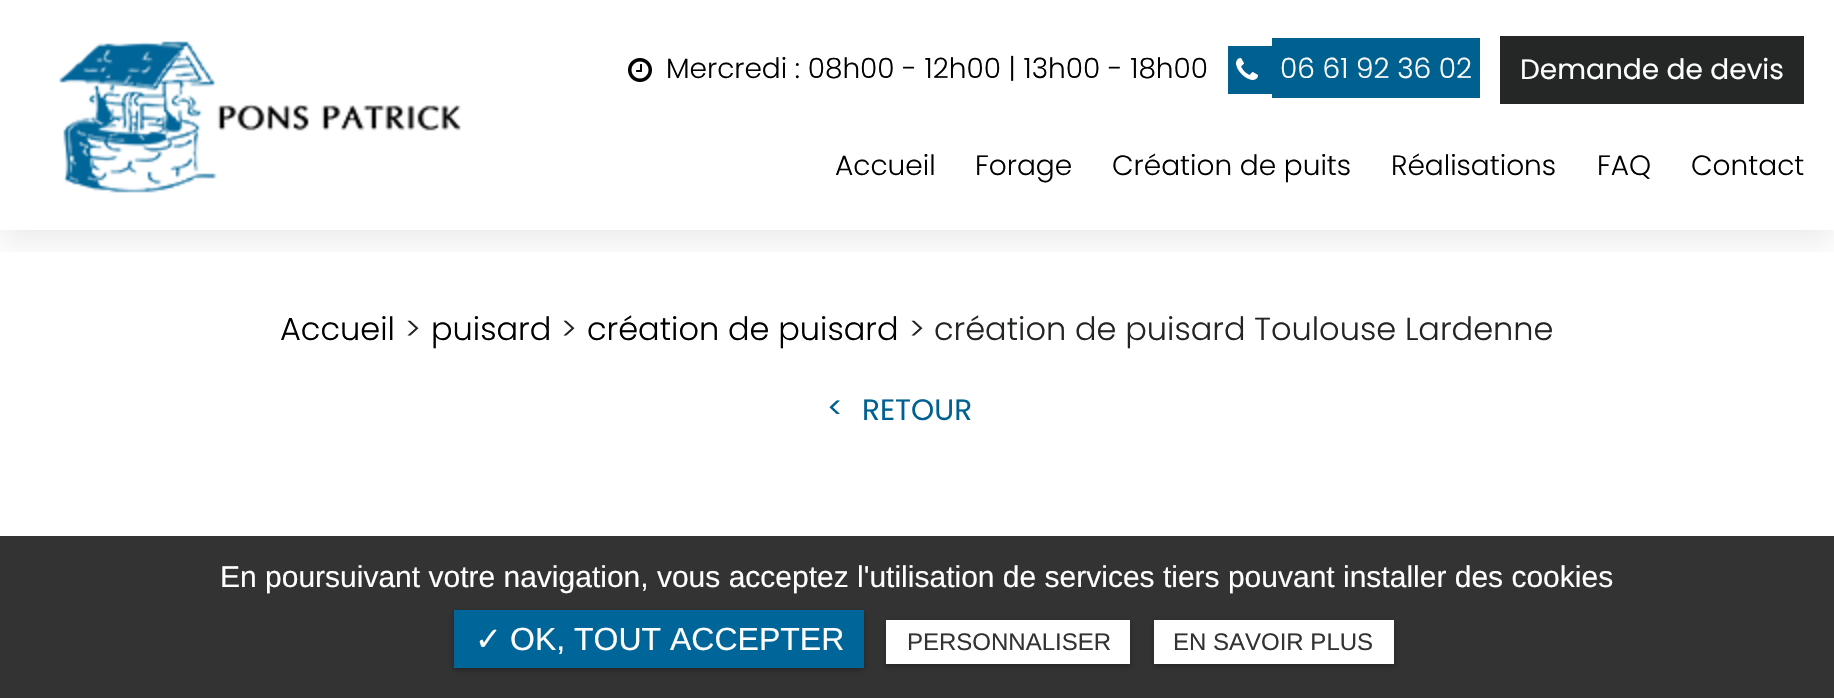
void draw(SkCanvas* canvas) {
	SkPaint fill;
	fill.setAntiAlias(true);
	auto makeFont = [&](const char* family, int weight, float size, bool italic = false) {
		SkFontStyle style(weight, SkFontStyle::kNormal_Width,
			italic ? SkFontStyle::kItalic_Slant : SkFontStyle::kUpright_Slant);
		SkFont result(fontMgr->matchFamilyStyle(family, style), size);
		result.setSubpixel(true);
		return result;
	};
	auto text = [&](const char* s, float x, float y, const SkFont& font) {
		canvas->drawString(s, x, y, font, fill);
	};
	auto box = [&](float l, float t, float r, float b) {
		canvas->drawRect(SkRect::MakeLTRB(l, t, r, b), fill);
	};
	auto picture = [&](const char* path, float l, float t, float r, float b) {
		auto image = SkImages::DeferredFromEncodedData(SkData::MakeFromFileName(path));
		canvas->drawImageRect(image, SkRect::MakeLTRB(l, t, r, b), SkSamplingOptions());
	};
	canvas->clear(0xFFFFFFFF);
	canvas->save();
	canvas->clipRect(SkRect::MakeLTRB(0, 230, 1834, 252));
	fill.setColor(0x14000000);
	fill.setMaskFilter(SkMaskFilter::MakeBlur(kNormal_SkBlurStyle, 15));
	canvas->drawRect(SkRect::MakeLTRB(0, 12, 1834, 242), fill);
	fill.setMaskFilter(nullptr);
	canvas->restore();
	picture("image0.png", 59, 41, 461, 193);
	picture("image1.png", 628, 58, 652, 82);
	fill.setColor(0xFF006191);
	box(1228, 46, 1272, 94);
	box(1272, 38, 1480, 98);
	picture("image2.png", 1236, 58, 1258, 80);
	fill.setColor(0xFF252727);
	box(1500, 36, 1804, 104);
	fill.setColor(0xFF333333);
	box(0, 536, 1834, 698);
	fill.setColor(0x4D000000);
	fill.setMaskFilter(SkMaskFilter::MakeBlur(kNormal_SkBlurStyle, 3));
	canvas->drawRect(SkRect::MakeLTRB(454, 612, 864, 670), fill);
	fill.setMaskFilter(nullptr);
	fill.setColor(0xFF006598);
	box(454, 610, 864, 668);
	fill.setColor(0x4D000000);
	fill.setMaskFilter(SkMaskFilter::MakeBlur(kNormal_SkBlurStyle, 3));
	canvas->drawRect(SkRect::MakeLTRB(886, 622, 1130, 666), fill);
	fill.setMaskFilter(nullptr);
	fill.setColor(0xFFFFFFFF);
	box(886, 620, 1130, 664);
	fill.setColor(0x4D000000);
	fill.setMaskFilter(SkMaskFilter::MakeBlur(kNormal_SkBlurStyle, 3));
	canvas->drawRect(SkRect::MakeLTRB(1154, 622, 1394, 666), fill);
	fill.setMaskFilter(nullptr);
	fill.setColor(0xFFFFFFFF);
	box(1154, 620, 1394, 664);
	auto font1 = makeFont("Poppins", 300, 28);
	fill.setColor(0xFF000000);
	text("Mercredi : 08h00 - 12h00 | 13h00 - 18h00", 666, 78, font1);
	fill.setColor(0xFFFFFFFF);
	text("06 61 92 36 02", 1280, 78, font1);
	auto font2 = makeFont("Poppins", 400, 28);
	text("Demande de devis", 1520, 79, font2);
	fill.setColor(0xFF000000);
	text("Accueil", 835, 175, font1);
	text("Forage", 975, 175, font1);
	text("Création de puits", 1112, 175, font1);
	text("Réalisations", 1391, 175, font1);
	text("FAQ", 1597, 175, font1);
	text("Contact", 1691, 175, font1);
	auto font3 = makeFont("Poppins", 300, 32);
	text("Accueil", 280, 340, font3);
	fill.setColor(0xFF232525);
	text(">", 405, 340, font3);
	fill.setColor(0xFF000000);
	text("puisard", 431, 340, font3);
	fill.setColor(0xFF232525);
	text(">", 561, 340, font3);
	fill.setColor(0xFF000000);
	text("création de puisard", 587, 340, font3);
	fill.setColor(0xFF232525);
	text(">", 909, 340, font3);
	text("création de puisard Toulouse Lardenne", 934, 340, font3);
	auto font4 = makeFont("Poppins", 400, 29.5f);
	fill.setColor(0xFF006191);
	text("<", 827, 418, font4);
	text("RETOUR", 862, 420, font4);
	auto font5 = makeFont("Liberation Sans", 400, 30);
	fill.setColor(0xFFFFFFFF);
	text("En poursuivant votre navigation, vous acceptez l'utilisation de services tiers pouvant installer des cookies", 220, 587, font5);
	auto font6 = makeFont("DejaVu Sans", 400, 32);
	text("✓", 475, 650, font6);
	auto font7 = makeFont("Liberation Sans", 400, 32);
	text("OK, TOUT ACCEPTER", 510, 650, font7);
	auto font8 = makeFont("Liberation Sans", 400, 24);
	fill.setColor(0xFF333333);
	text("PERSONNALISER", 907, 650, font8);
	text("EN SAVOIR PLUS", 1173, 650, font8);
}
